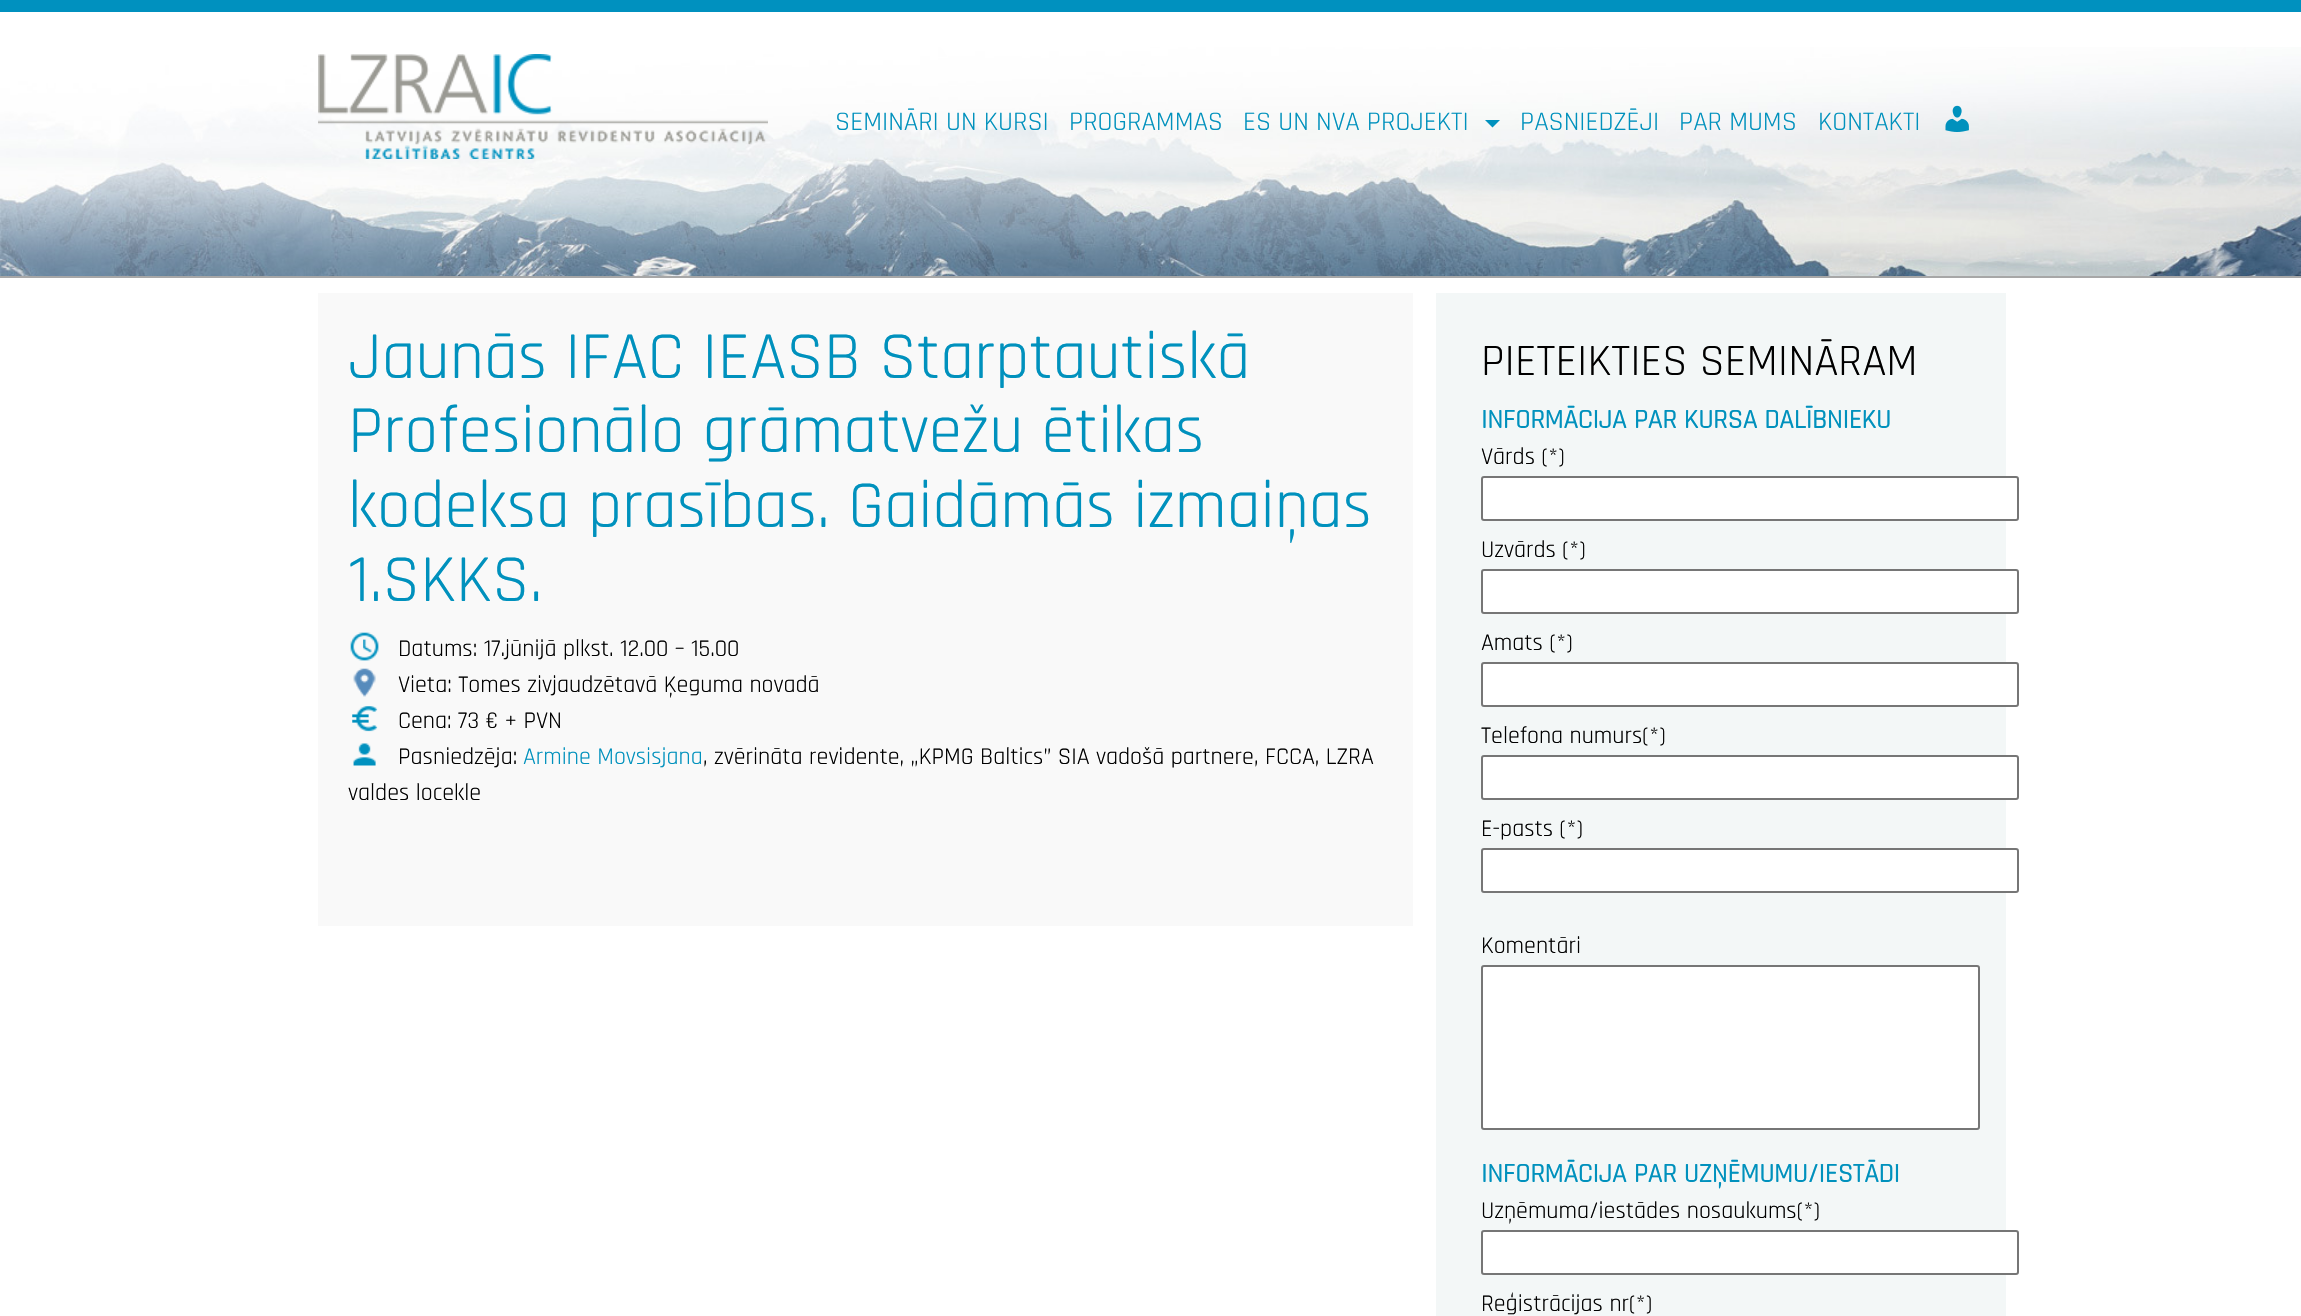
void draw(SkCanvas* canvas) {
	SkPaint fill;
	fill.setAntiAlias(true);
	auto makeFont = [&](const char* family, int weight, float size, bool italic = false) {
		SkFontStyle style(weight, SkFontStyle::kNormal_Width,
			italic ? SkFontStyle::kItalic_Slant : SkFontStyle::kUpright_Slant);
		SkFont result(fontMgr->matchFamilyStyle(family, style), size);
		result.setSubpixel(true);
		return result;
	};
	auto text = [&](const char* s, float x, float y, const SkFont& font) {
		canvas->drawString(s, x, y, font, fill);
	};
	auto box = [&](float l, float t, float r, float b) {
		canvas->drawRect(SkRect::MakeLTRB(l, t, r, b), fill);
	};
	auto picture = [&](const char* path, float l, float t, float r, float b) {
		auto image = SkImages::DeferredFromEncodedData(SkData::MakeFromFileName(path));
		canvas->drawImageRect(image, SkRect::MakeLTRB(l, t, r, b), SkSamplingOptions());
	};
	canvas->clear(0xFFFFFFFF);
	picture("image0.png", 0, 47, 2301, 276);
	fill.setColor(0xFFA7A7A7);
	box(0, 276, 2301, 278);
	fill.setColor(0xFF0091BF);
	box(0, 0, 2301, 12);
	picture("image1.png", 318, 54, 768, 159);
	fill.setColor(0xFF0091BD);
	canvas->drawPath(SkPathBuilder().moveTo(1485, 120).lineTo(1500, 120).lineTo(1492.5f, 127.5f).close().detach(), fill);
	picture("image2.png", 1945, 105, 1969, 132);
	fill.setColor(0xFFF9F9F9);
	box(318, 293, 1413, 926);
	picture("image3.png", 350, 632, 379, 661);
	picture("image4.png", 353, 668, 376, 697);
	picture("image5.png", 352, 706, 378, 732);
	picture("image6.png", 353, 743, 376, 766);
	fill.setColor(0xFFF3F7F7);
	box(1436, 293, 2006, 1316);
	fill.setColor(0xFFFFFFFF);
	canvas->drawRoundRect(SkRect::MakeLTRB(1482, 477, 2018, 520), 2, 2, fill);
	fill.setStyle(SkPaint::kStroke_Style);
	fill.setStrokeWidth(2);
	fill.setColor(0xFF767676);
	canvas->drawRoundRect(SkRect::MakeLTRB(1482, 477, 2018, 520), 2, 2, fill);
	fill.setStyle(SkPaint::kFill_Style);
	fill.setColor(0xFFFFFFFF);
	canvas->drawRoundRect(SkRect::MakeLTRB(1482, 570, 2018, 613), 2, 2, fill);
	fill.setStyle(SkPaint::kStroke_Style);
	fill.setColor(0xFF767676);
	canvas->drawRoundRect(SkRect::MakeLTRB(1482, 570, 2018, 613), 2, 2, fill);
	fill.setStyle(SkPaint::kFill_Style);
	fill.setColor(0xFFFFFFFF);
	canvas->drawRoundRect(SkRect::MakeLTRB(1482, 663, 2018, 706), 2, 2, fill);
	fill.setStyle(SkPaint::kStroke_Style);
	fill.setColor(0xFF767676);
	canvas->drawRoundRect(SkRect::MakeLTRB(1482, 663, 2018, 706), 2, 2, fill);
	fill.setStyle(SkPaint::kFill_Style);
	fill.setColor(0xFFFFFFFF);
	canvas->drawRoundRect(SkRect::MakeLTRB(1482, 756, 2018, 799), 2, 2, fill);
	fill.setStyle(SkPaint::kStroke_Style);
	fill.setColor(0xFF767676);
	canvas->drawRoundRect(SkRect::MakeLTRB(1482, 756, 2018, 799), 2, 2, fill);
	fill.setStyle(SkPaint::kFill_Style);
	fill.setColor(0xFFFFFFFF);
	canvas->drawRoundRect(SkRect::MakeLTRB(1482, 849, 2018, 892), 2, 2, fill);
	fill.setStyle(SkPaint::kStroke_Style);
	fill.setColor(0xFF767676);
	canvas->drawRoundRect(SkRect::MakeLTRB(1482, 849, 2018, 892), 2, 2, fill);
	fill.setStyle(SkPaint::kFill_Style);
	fill.setColor(0xFFFFFFFF);
	canvas->drawRoundRect(SkRect::MakeLTRB(1482, 966, 1979, 1129), 2, 2, fill);
	fill.setStyle(SkPaint::kStroke_Style);
	fill.setColor(0xFF767676);
	canvas->drawRoundRect(SkRect::MakeLTRB(1482, 966, 1979, 1129), 2, 2, fill);
	fill.setStyle(SkPaint::kFill_Style);
	fill.setColor(0xFFFFFFFF);
	canvas->drawRoundRect(SkRect::MakeLTRB(1482, 1231, 2018, 1274), 2, 2, fill);
	fill.setStyle(SkPaint::kStroke_Style);
	fill.setColor(0xFF767676);
	canvas->drawRoundRect(SkRect::MakeLTRB(1482, 1231, 2018, 1274), 2, 2, fill);
	auto font1 = makeFont("Rajdhani", 400, 27);
	fill.setStyle(SkPaint::kFill_Style);
	fill.setColor(0xFF0091BD);
	text("SEMINĀRI UN KURSI", 835, 130, font1);
	text("PROGRAMMAS", 1069, 130, font1);
	text("ES UN NVA PROJEKTI", 1243, 130, font1);
	text("PASNIEDZĒJI", 1520, 130, font1);
	text("PAR MUMS", 1679, 130, font1);
	text("KONTAKTI", 1818, 130, font1);
	auto font2 = makeFont("Rajdhani", 400, 67.5f);
	text("Jaunās IFAC IEASB Starptautiskā", 348, 378, font2);
	text("Profesionālo grāmatvežu ētikas", 348, 452, font2);
	text("kodeksa prasības. Gaidāmās izmaiņas", 348, 527, font2);
	text("1.SKKS.", 348, 601, font2);
	auto font3 = makeFont("Rajdhani", 400, 24);
	fill.setColor(0xFF000000);
	text("Datums: 17.jūnijā plkst. 12.00 – 15.00", 398, 656, font3);
	text("Vieta: Tomes zivjaudzētavā Ķeguma novadā", 398, 692, font3);
	text("Cena: 73 € + PVN", 398, 728, font3);
	text("Pasniedzēja:", 398, 764, font3);
	fill.setColor(0xFF0091BD);
	text("Armine Movsisjana", 523, 764, font3);
	fill.setColor(0xFF000000);
	text(", zvērināta revidente, „KPMG Baltics” SIA vadošā partnere, FCCA, LZRA", 703, 764, font3);
	text("valdes locekle", 348, 800, font3);
	auto font4 = makeFont("Rajdhani", 400, 45);
	text("PIETEIKTIES SEMINĀRAM", 1481, 375, font4);
	auto font5 = makeFont("Rajdhani", 700, 27);
	fill.setColor(0xFF0091BD);
	text("INFORMĀCIJA PAR KURSA DALĪBNIEKU", 1481, 428, font5);
	fill.setColor(0xFF000000);
	text("Vārds (*)", 1481, 464, font3);
	text("Uzvārds (*)", 1481, 557, font3);
	text("Amats (*)", 1481, 650, font3);
	text("Telefona numurs(*)", 1481, 743, font3);
	text("E-pasts (*)", 1481, 836, font3);
	text("Komentāri", 1481, 953, font3);
	fill.setColor(0xFF0091BD);
	text("INFORMĀCIJA PAR UZŅĒMUMU/IESTĀDI", 1481, 1182, font5);
	fill.setColor(0xFF000000);
	text("Uzņēmuma/iestādes nosaukums(*)", 1481, 1218, font3);
	text("Reģistrācijas nr(*)", 1481, 1311, font3);
}
